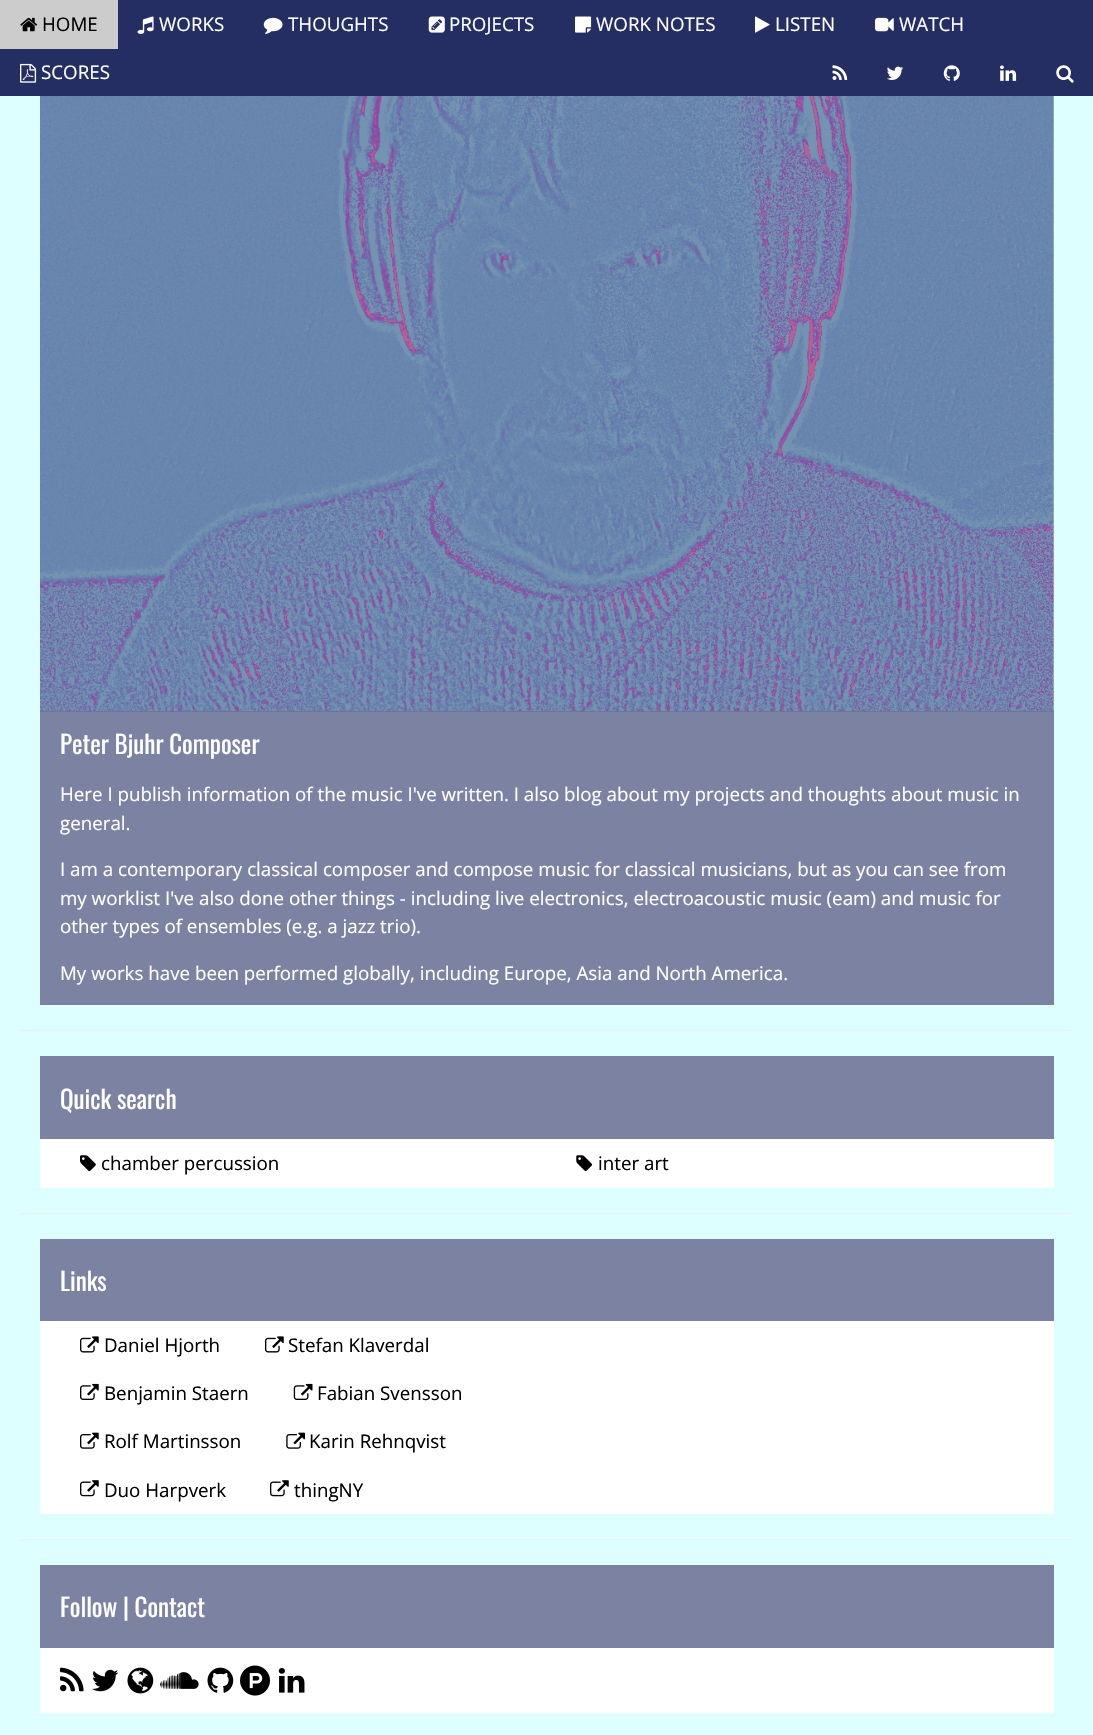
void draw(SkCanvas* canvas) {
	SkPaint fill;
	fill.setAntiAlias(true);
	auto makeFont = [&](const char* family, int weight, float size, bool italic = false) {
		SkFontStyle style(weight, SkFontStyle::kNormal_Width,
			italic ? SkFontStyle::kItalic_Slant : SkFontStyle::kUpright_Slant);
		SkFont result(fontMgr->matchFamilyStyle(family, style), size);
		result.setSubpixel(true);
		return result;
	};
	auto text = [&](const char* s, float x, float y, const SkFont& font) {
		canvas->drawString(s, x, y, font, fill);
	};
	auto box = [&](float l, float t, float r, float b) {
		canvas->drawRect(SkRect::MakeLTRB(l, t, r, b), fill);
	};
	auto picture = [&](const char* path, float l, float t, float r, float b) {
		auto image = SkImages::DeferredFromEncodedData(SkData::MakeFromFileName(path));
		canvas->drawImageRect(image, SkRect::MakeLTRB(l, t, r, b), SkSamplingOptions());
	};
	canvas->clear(0xFFDDFFFF);
	fill.setColor(0xFF252E63);
	box(0, 0, 1093, 96);
	fill.setColor(0xFFCCCCCC);
	box(0, 0, 118, 49);
	picture("image0.png", 20, 17, 38, 32);
	picture("image1.png", 137, 16, 154, 34);
	picture("image2.png", 263, 17, 283, 34);
	picture("image3.png", 428, 16, 445, 33);
	picture("image4.png", 575, 16, 592, 33);
	picture("image5.png", 755, 16, 770, 33);
	picture("image6.png", 875, 17, 894, 32);
	picture("image7.png", 20, 63, 37, 83);
	picture("image8.png", 832, 65, 848, 80);
	picture("image9.png", 886, 66, 903, 80);
	picture("image10.png", 943, 65, 960, 81);
	picture("image11.png", 1000, 65, 1017, 81);
	picture("image12.png", 1056, 65, 1074, 83);
	fill.setColor(0xFFFFFFFF);
	box(40, 96, 1054, 1005);
	picture("image13.png", 40, 96, 1054, 712);
	fill.setColor(0x99252E63);
	box(40, 711, 1054, 1005);
	fill.setColor(0xFFEEEEEE);
	box(20, 1030, 1074, 1031);
	fill.setColor(0xFFFFFFFF);
	box(40, 1139, 1054, 1188);
	fill.setColor(0xFF7C82A1);
	box(40, 1056, 1054, 1139);
	picture("image14.png", 80, 1155, 96, 1172);
	picture("image15.png", 576, 1155, 593, 1172);
	fill.setColor(0xFFEEEEEE);
	box(20, 1213, 1074, 1214);
	fill.setColor(0xFFFFFFFF);
	box(40, 1321, 1054, 1514);
	fill.setColor(0xFF7C82A1);
	box(40, 1239, 1054, 1321);
	picture("image16.png", 80, 1336, 99, 1353);
	picture("image16.png", 265, 1336, 284, 1353);
	picture("image17.png", 80, 1383, 99, 1400);
	picture("image18.png", 293, 1383, 313, 1400);
	picture("image19.png", 80, 1432, 99, 1449);
	picture("image20.png", 286, 1432, 305, 1449);
	picture("image21.png", 80, 1480, 99, 1497);
	picture("image21.png", 270, 1480, 289, 1497);
	fill.setColor(0xFFEEEEEE);
	box(20, 1539, 1074, 1540);
	fill.setColor(0xFFFFFFFF);
	box(40, 1648, 1054, 1713);
	fill.setColor(0xFF7C82A1);
	box(40, 1565, 1054, 1648);
	picture("image22.png", 60, 1667, 84, 1692);
	picture("image23.png", 92, 1669, 119, 1692);
	picture("image24.png", 127, 1667, 154, 1694);
	picture("image25.png", 160, 1672, 199, 1689);
	picture("image26.png", 207, 1667, 234, 1693);
	picture("image27.png", 240, 1665, 270, 1696);
	picture("image28.png", 278, 1668, 305, 1693);
	auto font1 = makeFont("Open Sans", 400, 18.75f);
	fill.setColor(0xFF000000);
	text("HOME", 42, 31, font1);
	fill.setColor(0xFFFFFFFF);
	text("WORKS", 159, 31, font1);
	text("THOUGHTS", 288, 31, font1);
	text("PROJECTS", 449, 31, font1);
	text("WORK NOTES", 596, 31, font1);
	text("LISTEN", 775, 31, font1);
	text("WATCH", 899, 31, font1);
	text("SCORES", 41, 79, font1);
	auto font2 = makeFont("Oswald", 400, 25);
	text("Peter Bjuhr Composer", 60, 754, font2);
	text("Here I publish information of the music I've written. I also blog about my projects and thoughts about music in", 60, 801, font1);
	text("general.", 60, 830, font1);
	text("I am a contemporary classical composer and compose music for classical musicians, but as you can see from", 60, 876, font1);
	text("my worklist I've also done other things - including live electronics, electroacoustic music (eam) and music for", 60, 905, font1);
	text("other types of ensembles (e.g. a jazz trio).", 60, 933, font1);
	text("My works have been performed globally, including Europe, Asia and North America.", 60, 980, font1);
	text("Quick search", 60, 1109, font2);
	fill.setColor(0xFF000000);
	text("chamber percussion", 101, 1170, font1);
	text("inter art", 598, 1170, font1);
	fill.setColor(0xFFFFFFFF);
	text("Links", 60, 1291, font2);
	fill.setColor(0xFF000000);
	text("Daniel Hjorth", 104, 1352, font1);
	text("Stefan Klaverdal", 288, 1352, font1);
	text("Benjamin Staern", 104, 1400, font1);
	text("Fabian Svensson", 317, 1400, font1);
	text("Rolf Martinsson", 104, 1448, font1);
	text("Karin Rehnqvist", 309, 1448, font1);
	text("Duo Harpverk", 104, 1497, font1);
	text("thingNY", 294, 1497, font1);
	fill.setColor(0xFFFFFFFF);
	text("Follow | Contact", 60, 1617, font2);
}
